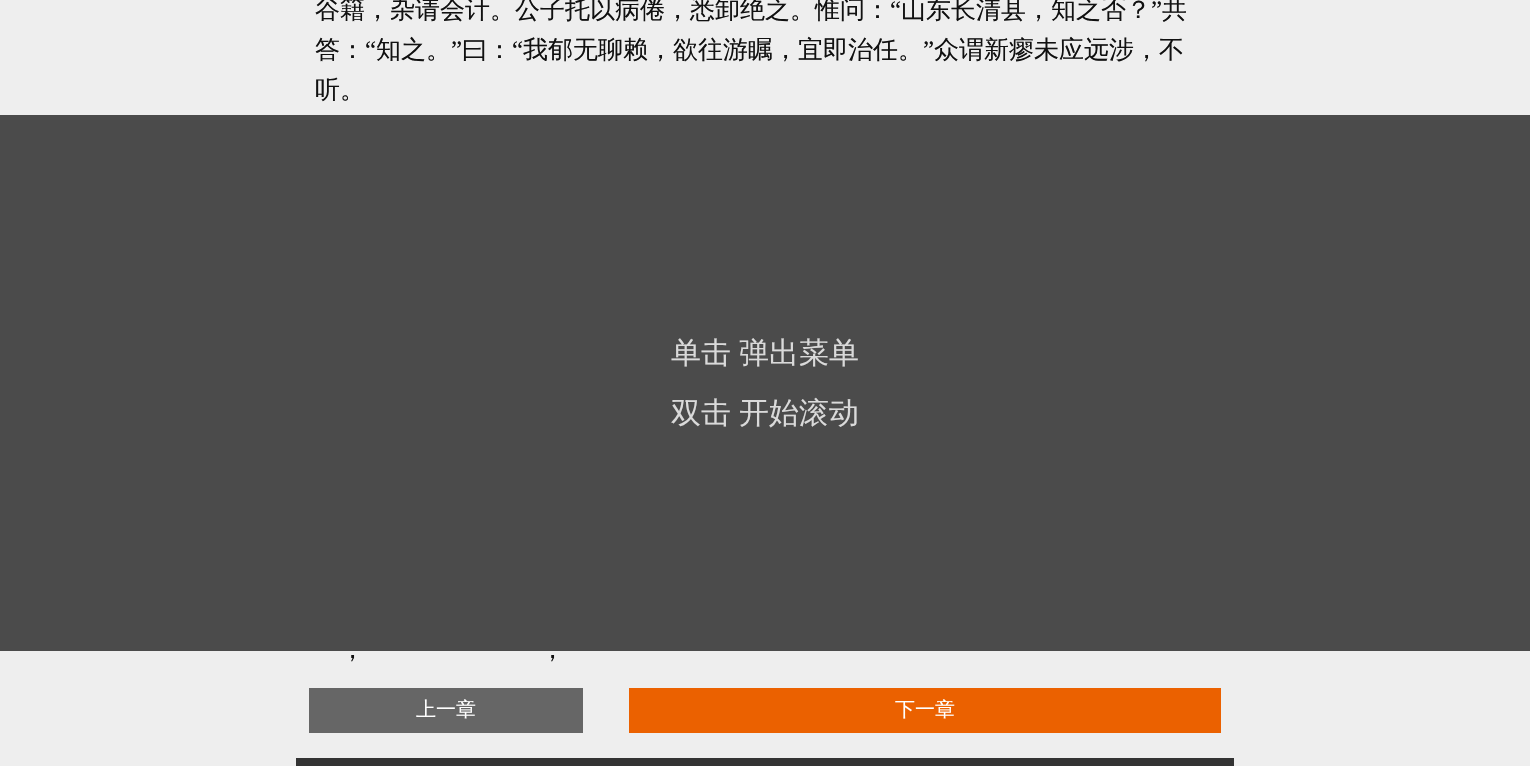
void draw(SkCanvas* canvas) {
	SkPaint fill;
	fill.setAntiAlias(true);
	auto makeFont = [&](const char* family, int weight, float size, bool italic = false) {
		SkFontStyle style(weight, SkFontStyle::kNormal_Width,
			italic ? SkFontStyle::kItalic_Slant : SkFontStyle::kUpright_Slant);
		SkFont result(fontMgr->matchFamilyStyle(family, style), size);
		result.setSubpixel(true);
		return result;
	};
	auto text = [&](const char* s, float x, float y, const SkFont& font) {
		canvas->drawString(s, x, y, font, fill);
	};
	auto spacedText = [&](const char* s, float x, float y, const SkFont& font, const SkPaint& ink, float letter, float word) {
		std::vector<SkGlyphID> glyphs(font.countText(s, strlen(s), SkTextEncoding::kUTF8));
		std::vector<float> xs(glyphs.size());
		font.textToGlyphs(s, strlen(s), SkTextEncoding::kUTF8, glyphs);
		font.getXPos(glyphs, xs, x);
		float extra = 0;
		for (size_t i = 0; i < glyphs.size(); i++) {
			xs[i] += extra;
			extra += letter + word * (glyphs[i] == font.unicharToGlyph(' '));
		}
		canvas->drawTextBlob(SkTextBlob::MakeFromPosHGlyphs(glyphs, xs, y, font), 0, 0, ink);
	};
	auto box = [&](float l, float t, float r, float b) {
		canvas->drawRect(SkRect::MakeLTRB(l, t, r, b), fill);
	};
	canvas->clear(0xFFEEEEEE);
	fill.setColor(0xFF666666);
	box(309, 688, 583, 733);
	fill.setColor(0xFFEB6100);
	box(629, 688, 1221, 733);
	fill.setColor(0xCC222222);
	box(0, 115, 1530, 651);
	fill.setColor(0xFF333333);
	box(296, 758, 1234, 766);
	auto font1 = makeFont("WenQuanYi Zen Hei", 500, 25);
	fill.setColor(0xFF111111);
	text("谷籍，杂请会计。公子托以病倦，悉卸绝之。惟问：", 315, 18, font1);
	auto font2 = makeFont("Liberation Serif", 400, 25);
	text("“", 890, 18, font2);
	text("山东长清县，知之否？", 901, 18, font1);
	text("”", 1151, 18, font2);
	text("共", 1162, 18, font1);
	text("答：", 315, 58, font1);
	text("“", 365, 58, font2);
	text("知之。", 376, 58, font1);
	text("”", 451, 58, font2);
	text("曰：", 462, 58, font1);
	text("“", 512, 58, font2);
	text("我郁无聊赖，欲往游瞩，宜即治任。", 523, 58, font1);
	text("”", 923, 58, font2);
	text("众谓新瘳未应远涉，不", 934, 58, font1);
	text("听。", 315, 98, font1);
	text("，", 340, 658, font1);
	text("，", 540, 658, font1);
	auto font3 = makeFont("WenQuanYi Zen Hei", 500, 20);
	fill.setColor(0xFFFFFFFF);
	text("上一章", 416, 716, font3);
	text("下一章", 895, 716, font3);
	auto font4 = makeFont("WenQuanYi Zen Hei", 500, 30);
	fill.setColor(0xFFDADADA);
	spacedText("单击 弹出菜单", 671, 363, font4, fill, 0, -1);
	spacedText("双击 开始滚动", 671, 423, font4, fill, 0, -1);
}
